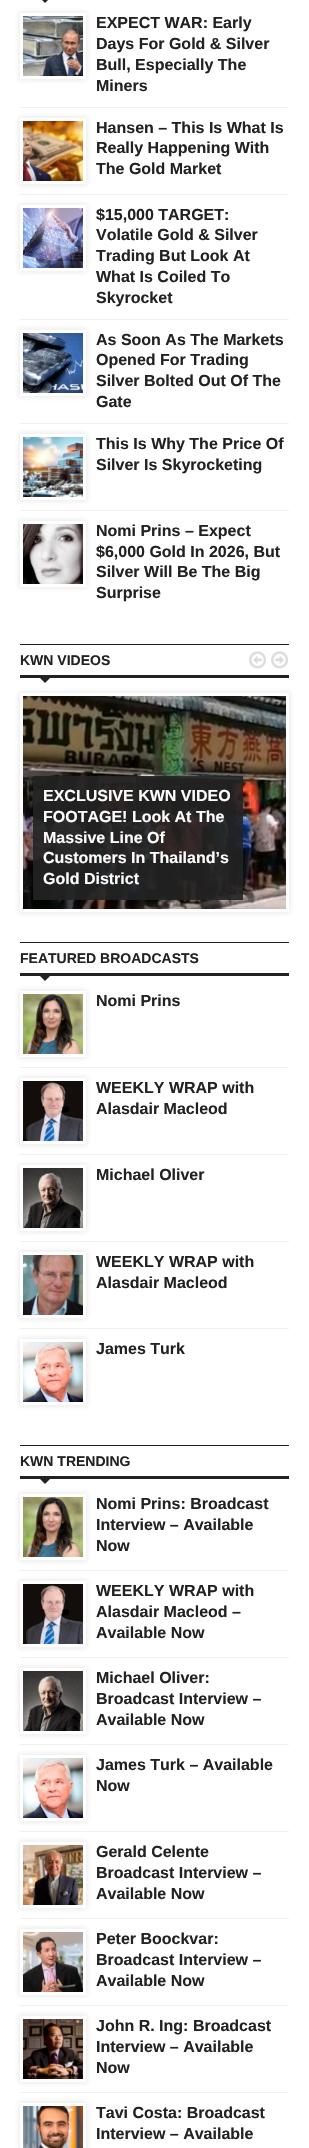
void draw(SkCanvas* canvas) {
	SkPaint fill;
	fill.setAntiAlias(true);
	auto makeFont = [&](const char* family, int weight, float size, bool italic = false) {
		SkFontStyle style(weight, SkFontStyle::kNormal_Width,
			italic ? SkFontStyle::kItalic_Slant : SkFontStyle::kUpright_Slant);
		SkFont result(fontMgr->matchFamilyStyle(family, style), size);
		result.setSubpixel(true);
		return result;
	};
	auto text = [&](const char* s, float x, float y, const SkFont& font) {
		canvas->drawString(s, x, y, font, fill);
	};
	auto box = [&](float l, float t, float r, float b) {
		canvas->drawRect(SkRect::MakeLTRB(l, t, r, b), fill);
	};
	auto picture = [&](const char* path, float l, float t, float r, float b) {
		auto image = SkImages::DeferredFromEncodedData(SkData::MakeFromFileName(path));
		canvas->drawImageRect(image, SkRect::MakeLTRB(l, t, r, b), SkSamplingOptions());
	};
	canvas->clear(0xFFFFFFFF);
	fill.setColor(0xFF222222);
	canvas->drawPath(SkPathBuilder().moveTo(40, -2).lineTo(50, -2).lineTo(45, 3).close().detach(), fill);
	fill.setColor(0xFFF0F0F0);
	box(20, 107, 289, 108);
	canvas->save();
	canvas->clipPath(SkPathBuilder(SkPathFillType::kEvenOdd).moveTo(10, 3).lineTo(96, 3).lineTo(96, 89).lineTo(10, 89).close().moveTo(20, 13).lineTo(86, 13).lineTo(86, 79).lineTo(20, 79).close().detach(), true);
	fill.setColor(0x1A222222);
	fill.setMaskFilter(SkMaskFilter::MakeBlur(kNormal_SkBlurStyle, 2.5f));
	canvas->drawRect(SkRect::MakeLTRB(19, 12, 87, 80), fill);
	fill.setMaskFilter(nullptr);
	canvas->restore();
	picture("image0.png", 23, 16, 83, 76);
	fill.setColor(0xFFF0F0F0);
	box(20, 194, 289, 195);
	canvas->save();
	canvas->clipPath(SkPathBuilder(SkPathFillType::kEvenOdd).moveTo(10, 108).lineTo(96, 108).lineTo(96, 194).lineTo(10, 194).close().moveTo(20, 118).lineTo(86, 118).lineTo(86, 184).lineTo(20, 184).close().detach(), true);
	fill.setColor(0x1A222222);
	fill.setMaskFilter(SkMaskFilter::MakeBlur(kNormal_SkBlurStyle, 2.5f));
	canvas->drawRect(SkRect::MakeLTRB(19, 117, 87, 185), fill);
	fill.setMaskFilter(nullptr);
	canvas->restore();
	picture("image1.png", 23, 121, 83, 181);
	fill.setColor(0xFFF0F0F0);
	box(20, 319, 289, 320);
	canvas->save();
	canvas->clipPath(SkPathBuilder(SkPathFillType::kEvenOdd).moveTo(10, 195).lineTo(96, 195).lineTo(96, 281).lineTo(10, 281).close().moveTo(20, 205).lineTo(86, 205).lineTo(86, 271).lineTo(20, 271).close().detach(), true);
	fill.setColor(0x1A222222);
	fill.setMaskFilter(SkMaskFilter::MakeBlur(kNormal_SkBlurStyle, 2.5f));
	canvas->drawRect(SkRect::MakeLTRB(19, 204, 87, 272), fill);
	fill.setMaskFilter(nullptr);
	canvas->restore();
	picture("image2.png", 23, 208, 83, 268);
	fill.setColor(0xFFF0F0F0);
	box(20, 423, 289, 424);
	canvas->save();
	canvas->clipPath(SkPathBuilder(SkPathFillType::kEvenOdd).moveTo(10, 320).lineTo(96, 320).lineTo(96, 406).lineTo(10, 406).close().moveTo(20, 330).lineTo(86, 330).lineTo(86, 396).lineTo(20, 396).close().detach(), true);
	fill.setColor(0x1A222222);
	fill.setMaskFilter(SkMaskFilter::MakeBlur(kNormal_SkBlurStyle, 2.5f));
	canvas->drawRect(SkRect::MakeLTRB(19, 329, 87, 397), fill);
	fill.setMaskFilter(nullptr);
	canvas->restore();
	picture("image3.png", 23, 333, 83, 393);
	fill.setColor(0xFFF0F0F0);
	box(20, 510, 289, 511);
	canvas->save();
	canvas->clipPath(SkPathBuilder(SkPathFillType::kEvenOdd).moveTo(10, 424).lineTo(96, 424).lineTo(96, 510).lineTo(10, 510).close().moveTo(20, 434).lineTo(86, 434).lineTo(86, 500).lineTo(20, 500).close().detach(), true);
	fill.setColor(0x1A222222);
	fill.setMaskFilter(SkMaskFilter::MakeBlur(kNormal_SkBlurStyle, 2.5f));
	canvas->drawRect(SkRect::MakeLTRB(19, 433, 87, 501), fill);
	fill.setMaskFilter(nullptr);
	canvas->restore();
	picture("image4.png", 23, 437, 83, 497);
	canvas->save();
	canvas->clipPath(SkPathBuilder(SkPathFillType::kEvenOdd).moveTo(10, 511).lineTo(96, 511).lineTo(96, 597).lineTo(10, 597).close().moveTo(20, 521).lineTo(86, 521).lineTo(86, 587).lineTo(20, 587).close().detach(), true);
	fill.setMaskFilter(SkMaskFilter::MakeBlur(kNormal_SkBlurStyle, 2.5f));
	canvas->drawRect(SkRect::MakeLTRB(19, 520, 87, 588), fill);
	fill.setMaskFilter(nullptr);
	canvas->restore();
	picture("image5.png", 23, 524, 83, 584);
	fill.setColor(0xFF222222);
	box(20, 644, 289, 645);
	box(20, 675, 289, 678);
	canvas->drawPath(SkPathBuilder().moveTo(40, 678).lineTo(50, 678).lineTo(45, 683).close().detach(), fill);
	picture("image6.png", 249, 651, 266, 669);
	picture("image7.png", 271, 651, 288, 669);
	canvas->save();
	canvas->clipPath(SkPathBuilder(SkPathFillType::kEvenOdd).moveTo(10, 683).lineTo(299, 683).lineTo(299, 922).lineTo(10, 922).close().moveTo(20, 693).lineTo(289, 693).lineTo(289, 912).lineTo(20, 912).close().detach(), true);
	fill.setColor(0x1A222222);
	fill.setMaskFilter(SkMaskFilter::MakeBlur(kNormal_SkBlurStyle, 2.5f));
	canvas->drawRect(SkRect::MakeLTRB(19, 692, 290, 913), fill);
	fill.setMaskFilter(nullptr);
	canvas->restore();
	picture("image8.png", 23, 696, 286, 909);
	fill.setColor(0xE6222222);
	box(33, 776, 243, 900);
	fill.setColor(0xFF222222);
	box(20, 942, 289, 943);
	box(20, 973, 289, 976);
	canvas->drawPath(SkPathBuilder().moveTo(40, 976).lineTo(50, 976).lineTo(45, 981).close().detach(), fill);
	fill.setColor(0xFFF0F0F0);
	box(20, 1067, 289, 1068);
	canvas->save();
	canvas->clipPath(SkPathBuilder(SkPathFillType::kEvenOdd).moveTo(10, 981).lineTo(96, 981).lineTo(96, 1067).lineTo(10, 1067).close().moveTo(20, 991).lineTo(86, 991).lineTo(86, 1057).lineTo(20, 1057).close().detach(), true);
	fill.setColor(0x1A222222);
	fill.setMaskFilter(SkMaskFilter::MakeBlur(kNormal_SkBlurStyle, 2.5f));
	canvas->drawRect(SkRect::MakeLTRB(19, 990, 87, 1058), fill);
	fill.setMaskFilter(nullptr);
	canvas->restore();
	picture("image9.png", 23, 994, 83, 1054);
	fill.setColor(0xFFF0F0F0);
	box(20, 1154, 289, 1155);
	canvas->save();
	canvas->clipPath(SkPathBuilder(SkPathFillType::kEvenOdd).moveTo(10, 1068).lineTo(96, 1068).lineTo(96, 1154).lineTo(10, 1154).close().moveTo(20, 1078).lineTo(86, 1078).lineTo(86, 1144).lineTo(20, 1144).close().detach(), true);
	fill.setColor(0x1A222222);
	fill.setMaskFilter(SkMaskFilter::MakeBlur(kNormal_SkBlurStyle, 2.5f));
	canvas->drawRect(SkRect::MakeLTRB(19, 1077, 87, 1145), fill);
	fill.setMaskFilter(nullptr);
	canvas->restore();
	picture("image10.png", 23, 1081, 83, 1141);
	fill.setColor(0xFFF0F0F0);
	box(20, 1241, 289, 1242);
	canvas->save();
	canvas->clipPath(SkPathBuilder(SkPathFillType::kEvenOdd).moveTo(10, 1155).lineTo(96, 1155).lineTo(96, 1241).lineTo(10, 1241).close().moveTo(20, 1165).lineTo(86, 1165).lineTo(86, 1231).lineTo(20, 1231).close().detach(), true);
	fill.setColor(0x1A222222);
	fill.setMaskFilter(SkMaskFilter::MakeBlur(kNormal_SkBlurStyle, 2.5f));
	canvas->drawRect(SkRect::MakeLTRB(19, 1164, 87, 1232), fill);
	fill.setMaskFilter(nullptr);
	canvas->restore();
	picture("image11.png", 23, 1168, 83, 1228);
	fill.setColor(0xFFF0F0F0);
	box(20, 1328, 289, 1329);
	canvas->save();
	canvas->clipPath(SkPathBuilder(SkPathFillType::kEvenOdd).moveTo(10, 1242).lineTo(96, 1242).lineTo(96, 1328).lineTo(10, 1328).close().moveTo(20, 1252).lineTo(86, 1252).lineTo(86, 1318).lineTo(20, 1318).close().detach(), true);
	fill.setColor(0x1A222222);
	fill.setMaskFilter(SkMaskFilter::MakeBlur(kNormal_SkBlurStyle, 2.5f));
	canvas->drawRect(SkRect::MakeLTRB(19, 1251, 87, 1319), fill);
	fill.setMaskFilter(nullptr);
	canvas->restore();
	picture("image12.png", 23, 1255, 83, 1315);
	canvas->save();
	canvas->clipPath(SkPathBuilder(SkPathFillType::kEvenOdd).moveTo(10, 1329).lineTo(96, 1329).lineTo(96, 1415).lineTo(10, 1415).close().moveTo(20, 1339).lineTo(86, 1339).lineTo(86, 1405).lineTo(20, 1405).close().detach(), true);
	fill.setMaskFilter(SkMaskFilter::MakeBlur(kNormal_SkBlurStyle, 2.5f));
	canvas->drawRect(SkRect::MakeLTRB(19, 1338, 87, 1406), fill);
	fill.setMaskFilter(nullptr);
	canvas->restore();
	picture("image13.png", 23, 1342, 83, 1402);
	fill.setColor(0xFF222222);
	box(20, 1445, 289, 1446);
	box(20, 1476, 289, 1479);
	canvas->drawPath(SkPathBuilder().moveTo(40, 1479).lineTo(50, 1479).lineTo(45, 1484).close().detach(), fill);
	fill.setColor(0xFFF0F0F0);
	box(20, 1570, 289, 1571);
	canvas->save();
	canvas->clipPath(SkPathBuilder(SkPathFillType::kEvenOdd).moveTo(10, 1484).lineTo(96, 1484).lineTo(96, 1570).lineTo(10, 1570).close().moveTo(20, 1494).lineTo(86, 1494).lineTo(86, 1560).lineTo(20, 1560).close().detach(), true);
	fill.setColor(0x1A222222);
	fill.setMaskFilter(SkMaskFilter::MakeBlur(kNormal_SkBlurStyle, 2.5f));
	canvas->drawRect(SkRect::MakeLTRB(19, 1493, 87, 1561), fill);
	fill.setMaskFilter(nullptr);
	canvas->restore();
	picture("image9.png", 23, 1497, 83, 1557);
	fill.setColor(0xFFF0F0F0);
	box(20, 1657, 289, 1658);
	canvas->save();
	canvas->clipPath(SkPathBuilder(SkPathFillType::kEvenOdd).moveTo(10, 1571).lineTo(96, 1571).lineTo(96, 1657).lineTo(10, 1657).close().moveTo(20, 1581).lineTo(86, 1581).lineTo(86, 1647).lineTo(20, 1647).close().detach(), true);
	fill.setColor(0x1A222222);
	fill.setMaskFilter(SkMaskFilter::MakeBlur(kNormal_SkBlurStyle, 2.5f));
	canvas->drawRect(SkRect::MakeLTRB(19, 1580, 87, 1648), fill);
	fill.setMaskFilter(nullptr);
	canvas->restore();
	picture("image10.png", 23, 1584, 83, 1644);
	fill.setColor(0xFFF0F0F0);
	box(20, 1744, 289, 1745);
	canvas->save();
	canvas->clipPath(SkPathBuilder(SkPathFillType::kEvenOdd).moveTo(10, 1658).lineTo(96, 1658).lineTo(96, 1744).lineTo(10, 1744).close().moveTo(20, 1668).lineTo(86, 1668).lineTo(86, 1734).lineTo(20, 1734).close().detach(), true);
	fill.setColor(0x1A222222);
	fill.setMaskFilter(SkMaskFilter::MakeBlur(kNormal_SkBlurStyle, 2.5f));
	canvas->drawRect(SkRect::MakeLTRB(19, 1667, 87, 1735), fill);
	fill.setMaskFilter(nullptr);
	canvas->restore();
	picture("image11.png", 23, 1671, 83, 1731);
	fill.setColor(0xFFF0F0F0);
	box(20, 1831, 289, 1832);
	canvas->save();
	canvas->clipPath(SkPathBuilder(SkPathFillType::kEvenOdd).moveTo(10, 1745).lineTo(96, 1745).lineTo(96, 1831).lineTo(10, 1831).close().moveTo(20, 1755).lineTo(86, 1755).lineTo(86, 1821).lineTo(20, 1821).close().detach(), true);
	fill.setColor(0x1A222222);
	fill.setMaskFilter(SkMaskFilter::MakeBlur(kNormal_SkBlurStyle, 2.5f));
	canvas->drawRect(SkRect::MakeLTRB(19, 1754, 87, 1822), fill);
	fill.setMaskFilter(nullptr);
	canvas->restore();
	picture("image13.png", 23, 1758, 83, 1818);
	fill.setColor(0xFFF0F0F0);
	box(20, 1918, 289, 1919);
	canvas->save();
	canvas->clipPath(SkPathBuilder(SkPathFillType::kEvenOdd).moveTo(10, 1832).lineTo(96, 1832).lineTo(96, 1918).lineTo(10, 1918).close().moveTo(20, 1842).lineTo(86, 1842).lineTo(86, 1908).lineTo(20, 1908).close().detach(), true);
	fill.setColor(0x1A222222);
	fill.setMaskFilter(SkMaskFilter::MakeBlur(kNormal_SkBlurStyle, 2.5f));
	canvas->drawRect(SkRect::MakeLTRB(19, 1841, 87, 1909), fill);
	fill.setMaskFilter(nullptr);
	canvas->restore();
	picture("image14.png", 23, 1845, 83, 1905);
	fill.setColor(0xFFF0F0F0);
	box(20, 2005, 289, 2006);
	canvas->save();
	canvas->clipPath(SkPathBuilder(SkPathFillType::kEvenOdd).moveTo(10, 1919).lineTo(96, 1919).lineTo(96, 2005).lineTo(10, 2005).close().moveTo(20, 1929).lineTo(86, 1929).lineTo(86, 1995).lineTo(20, 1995).close().detach(), true);
	fill.setColor(0x1A222222);
	fill.setMaskFilter(SkMaskFilter::MakeBlur(kNormal_SkBlurStyle, 2.5f));
	canvas->drawRect(SkRect::MakeLTRB(19, 1928, 87, 1996), fill);
	fill.setMaskFilter(nullptr);
	canvas->restore();
	picture("image15.png", 23, 1932, 83, 1992);
	fill.setColor(0xFFF0F0F0);
	box(20, 2092, 289, 2093);
	canvas->save();
	canvas->clipPath(SkPathBuilder(SkPathFillType::kEvenOdd).moveTo(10, 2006).lineTo(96, 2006).lineTo(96, 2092).lineTo(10, 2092).close().moveTo(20, 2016).lineTo(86, 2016).lineTo(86, 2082).lineTo(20, 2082).close().detach(), true);
	fill.setColor(0x1A222222);
	fill.setMaskFilter(SkMaskFilter::MakeBlur(kNormal_SkBlurStyle, 2.5f));
	canvas->drawRect(SkRect::MakeLTRB(19, 2015, 87, 2083), fill);
	fill.setMaskFilter(nullptr);
	canvas->restore();
	picture("image16.png", 23, 2019, 83, 2079);
	canvas->save();
	canvas->clipPath(SkPathBuilder(SkPathFillType::kEvenOdd).moveTo(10, 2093).lineTo(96, 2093).lineTo(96, 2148).lineTo(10, 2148).close().moveTo(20, 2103).lineTo(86, 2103).lineTo(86, 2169).lineTo(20, 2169).close().detach(), true);
	fill.setMaskFilter(SkMaskFilter::MakeBlur(kNormal_SkBlurStyle, 2.5f));
	canvas->drawRect(SkRect::MakeLTRB(19, 2102, 87, 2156), fill);
	fill.setMaskFilter(nullptr);
	canvas->restore();
	picture("image17.png", 23, 2106, 83, 2148);
	auto font1 = makeFont("Liberation Sans", 700, 16);
	fill.setColor(0xFF222222);
	text("EXPECT WAR: Early", 96, 28, font1);
	text("Days For Gold & Silver", 96, 49, font1);
	text("Bull, Especially The", 96, 70, font1);
	text("Miners", 96, 91, font1);
	text("Hansen – This Is What Is", 96, 133, font1);
	text("Really Happening With", 96, 153, font1);
	text("The Gold Market", 96, 174, font1);
	text("$15,000 TARGET:", 96, 220, font1);
	text("Volatile Gold & Silver", 96, 240, font1);
	text("Trading But Look At", 96, 261, font1);
	text("What Is Coiled To", 96, 282, font1);
	text("Skyrocket", 96, 303, font1);
	text("As Soon As The Markets", 96, 345, font1);
	text("Opened For Trading", 96, 365, font1);
	text("Silver Bolted Out Of The", 96, 386, font1);
	text("Gate", 96, 407, font1);
	text("This Is Why The Price Of", 96, 449, font1);
	text("Silver Is Skyrocketing", 96, 470, font1);
	text("Nomi Prins – Expect", 96, 536, font1);
	text("$6,000 Gold In 2026, But", 96, 557, font1);
	text("Silver Will Be The Big", 96, 577, font1);
	text("Surprise", 96, 598, font1);
	auto font2 = makeFont("Liberation Sans", 700, 14);
	text("KWN VIDEOS", 20, 665, font2);
	fill.setColor(0xFFFFFFFF);
	text("EXCLUSIVE KWN VIDEO", 43, 801, font1);
	text("FOOTAGE! Look At The", 43, 822, font1);
	text("Massive Line Of", 43, 843, font1);
	text("Customers In Thailand’s", 43, 863, font1);
	text("Gold District", 43, 884, font1);
	fill.setColor(0xFF222222);
	text("FEATURED BROADCASTS", 20, 963, font2);
	text("Nomi Prins", 96, 1006, font1);
	text("WEEKLY WRAP with", 96, 1093, font1);
	text("Alasdair Macleod", 96, 1114, font1);
	text("Michael Oliver", 96, 1180, font1);
	text("WEEKLY WRAP with", 96, 1267, font1);
	text("Alasdair Macleod", 96, 1288, font1);
	text("James Turk", 96, 1354, font1);
	text("KWN TRENDING", 20, 1466, font2);
	text("Nomi Prins: Broadcast", 96, 1509, font1);
	text("Interview – Available", 96, 1530, font1);
	text("Now", 96, 1551, font1);
	text("WEEKLY WRAP with", 96, 1596, font1);
	text("Alasdair Macleod –", 96, 1617, font1);
	text("Available Now", 96, 1638, font1);
	text("Michael Oliver:", 96, 1683, font1);
	text("Broadcast Interview –", 96, 1704, font1);
	text("Available Now", 96, 1725, font1);
	text("James Turk – Available", 96, 1770, font1);
	text("Now", 96, 1791, font1);
	text("Gerald Celente", 96, 1857, font1);
	text("Broadcast Interview –", 96, 1878, font1);
	text("Available Now", 96, 1899, font1);
	text("Peter Boockvar:", 96, 1944, font1);
	text("Broadcast Interview –", 96, 1965, font1);
	text("Available Now", 96, 1986, font1);
	text("John R. Ing: Broadcast", 96, 2031, font1);
	text("Interview – Available", 96, 2052, font1);
	text("Now", 96, 2073, font1);
	text("Tavi Costa: Broadcast", 96, 2118, font1);
	text("Interview – Available", 96, 2139, font1);
}
